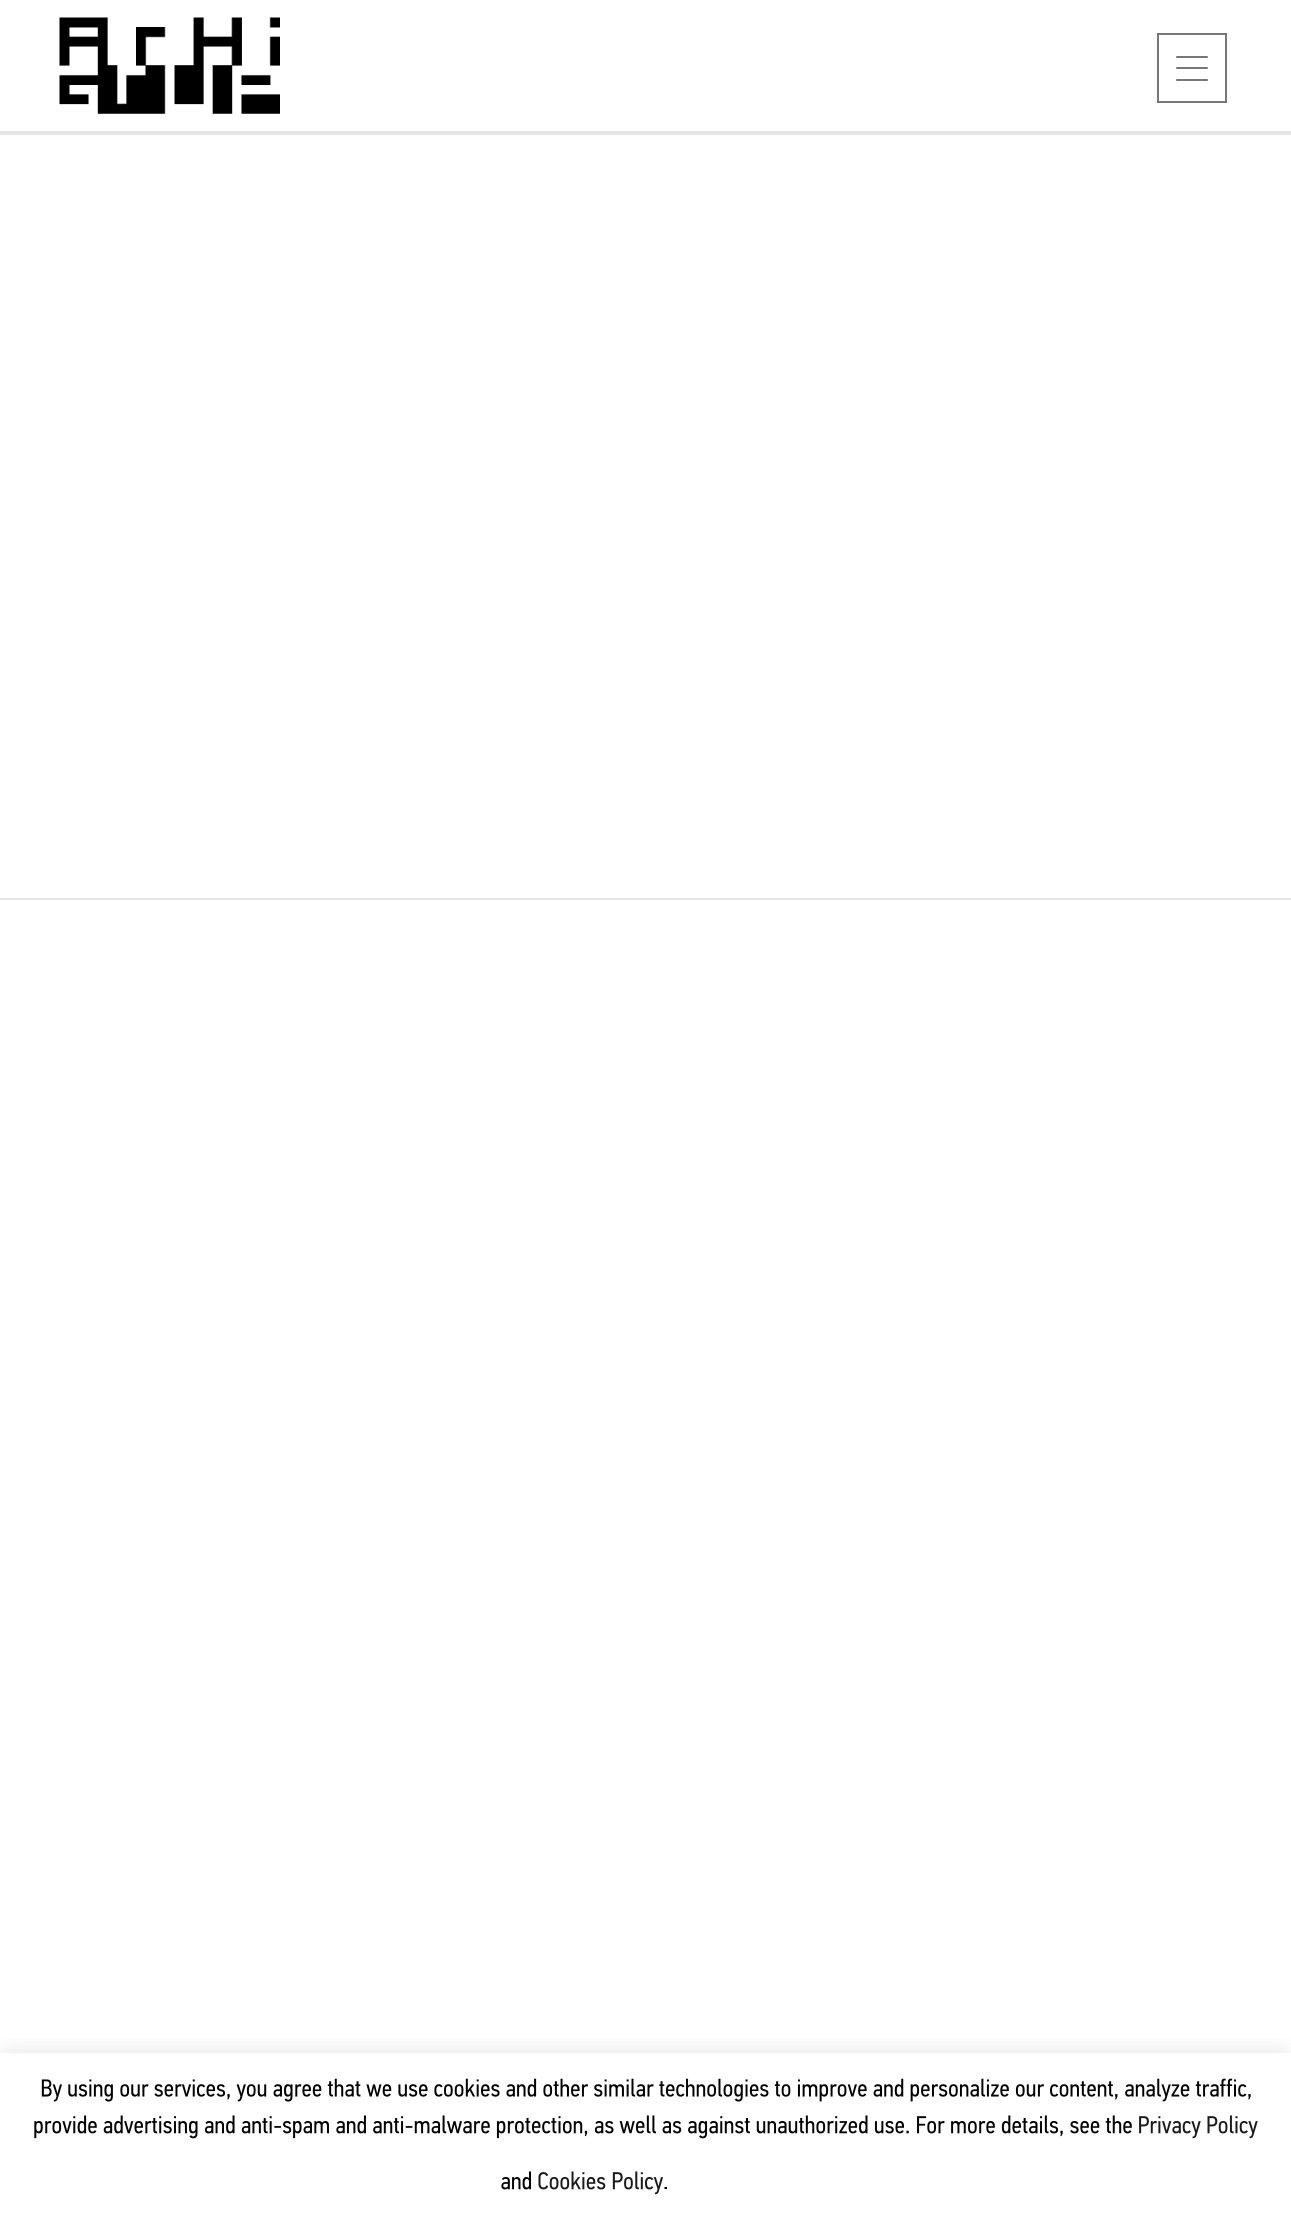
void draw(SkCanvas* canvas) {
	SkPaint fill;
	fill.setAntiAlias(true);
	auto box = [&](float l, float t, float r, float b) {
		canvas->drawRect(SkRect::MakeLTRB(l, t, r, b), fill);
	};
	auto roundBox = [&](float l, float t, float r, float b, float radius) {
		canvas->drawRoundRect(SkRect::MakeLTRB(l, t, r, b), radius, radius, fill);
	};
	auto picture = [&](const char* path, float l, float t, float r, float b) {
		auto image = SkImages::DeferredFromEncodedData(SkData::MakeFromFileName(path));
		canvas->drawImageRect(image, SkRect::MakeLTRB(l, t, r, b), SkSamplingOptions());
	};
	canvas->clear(0xFFFFFFFF);
	fill.setColor(0xFFE5E5E5);
	box(0, 131, 1291, 135);
	picture("image0.png", 59, 17, 280, 114);
	fill.setStyle(SkPaint::kStroke_Style);
	fill.setStrokeWidth(2);
	fill.setColor(0xFF777777);
	canvas->drawRect(SkRect::MakeLTRB(1158, 34, 1226, 102), fill);
	fill.setStyle(SkPaint::kFill_Style);
	roundBox(1176, 56, 1208, 58, 1);
	roundBox(1176, 67, 1208, 69, 1);
	roundBox(1176, 79, 1208, 81, 1);
	fill.setColor(0xFFE5E5E5);
	box(0, 898, 1291, 900);
	canvas->save();
	canvas->clipRect(SkRect::MakeLTRB(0, 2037, 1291, 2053));
	fill.setColor(0x4DACABAB);
	fill.setMaskFilter(SkMaskFilter::MakeBlur(kNormal_SkBlurStyle, 9));
	canvas->drawRect(SkRect::MakeLTRB(0, 2051, 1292, 2238), fill);
	fill.setMaskFilter(nullptr);
	canvas->restore();
	picture("image1.png", 41, 2078, 1251, 2102);
	picture("image2.png", 34, 2115, 1132, 2139);
	picture("image3.png", 1139, 2115, 1258, 2139);
	picture("image4.png", 501, 2171, 532, 2190);
	picture("image5.png", 538, 2171, 663, 2195);
	fill.setColor(0xFF000000);
	canvas->drawPath(SkPathBuilder().moveTo(664.5f, 2189).lineTo(664.5f, 2187).lineTo(667, 2187).lineTo(667, 2189).close().detach(), fill);
}
